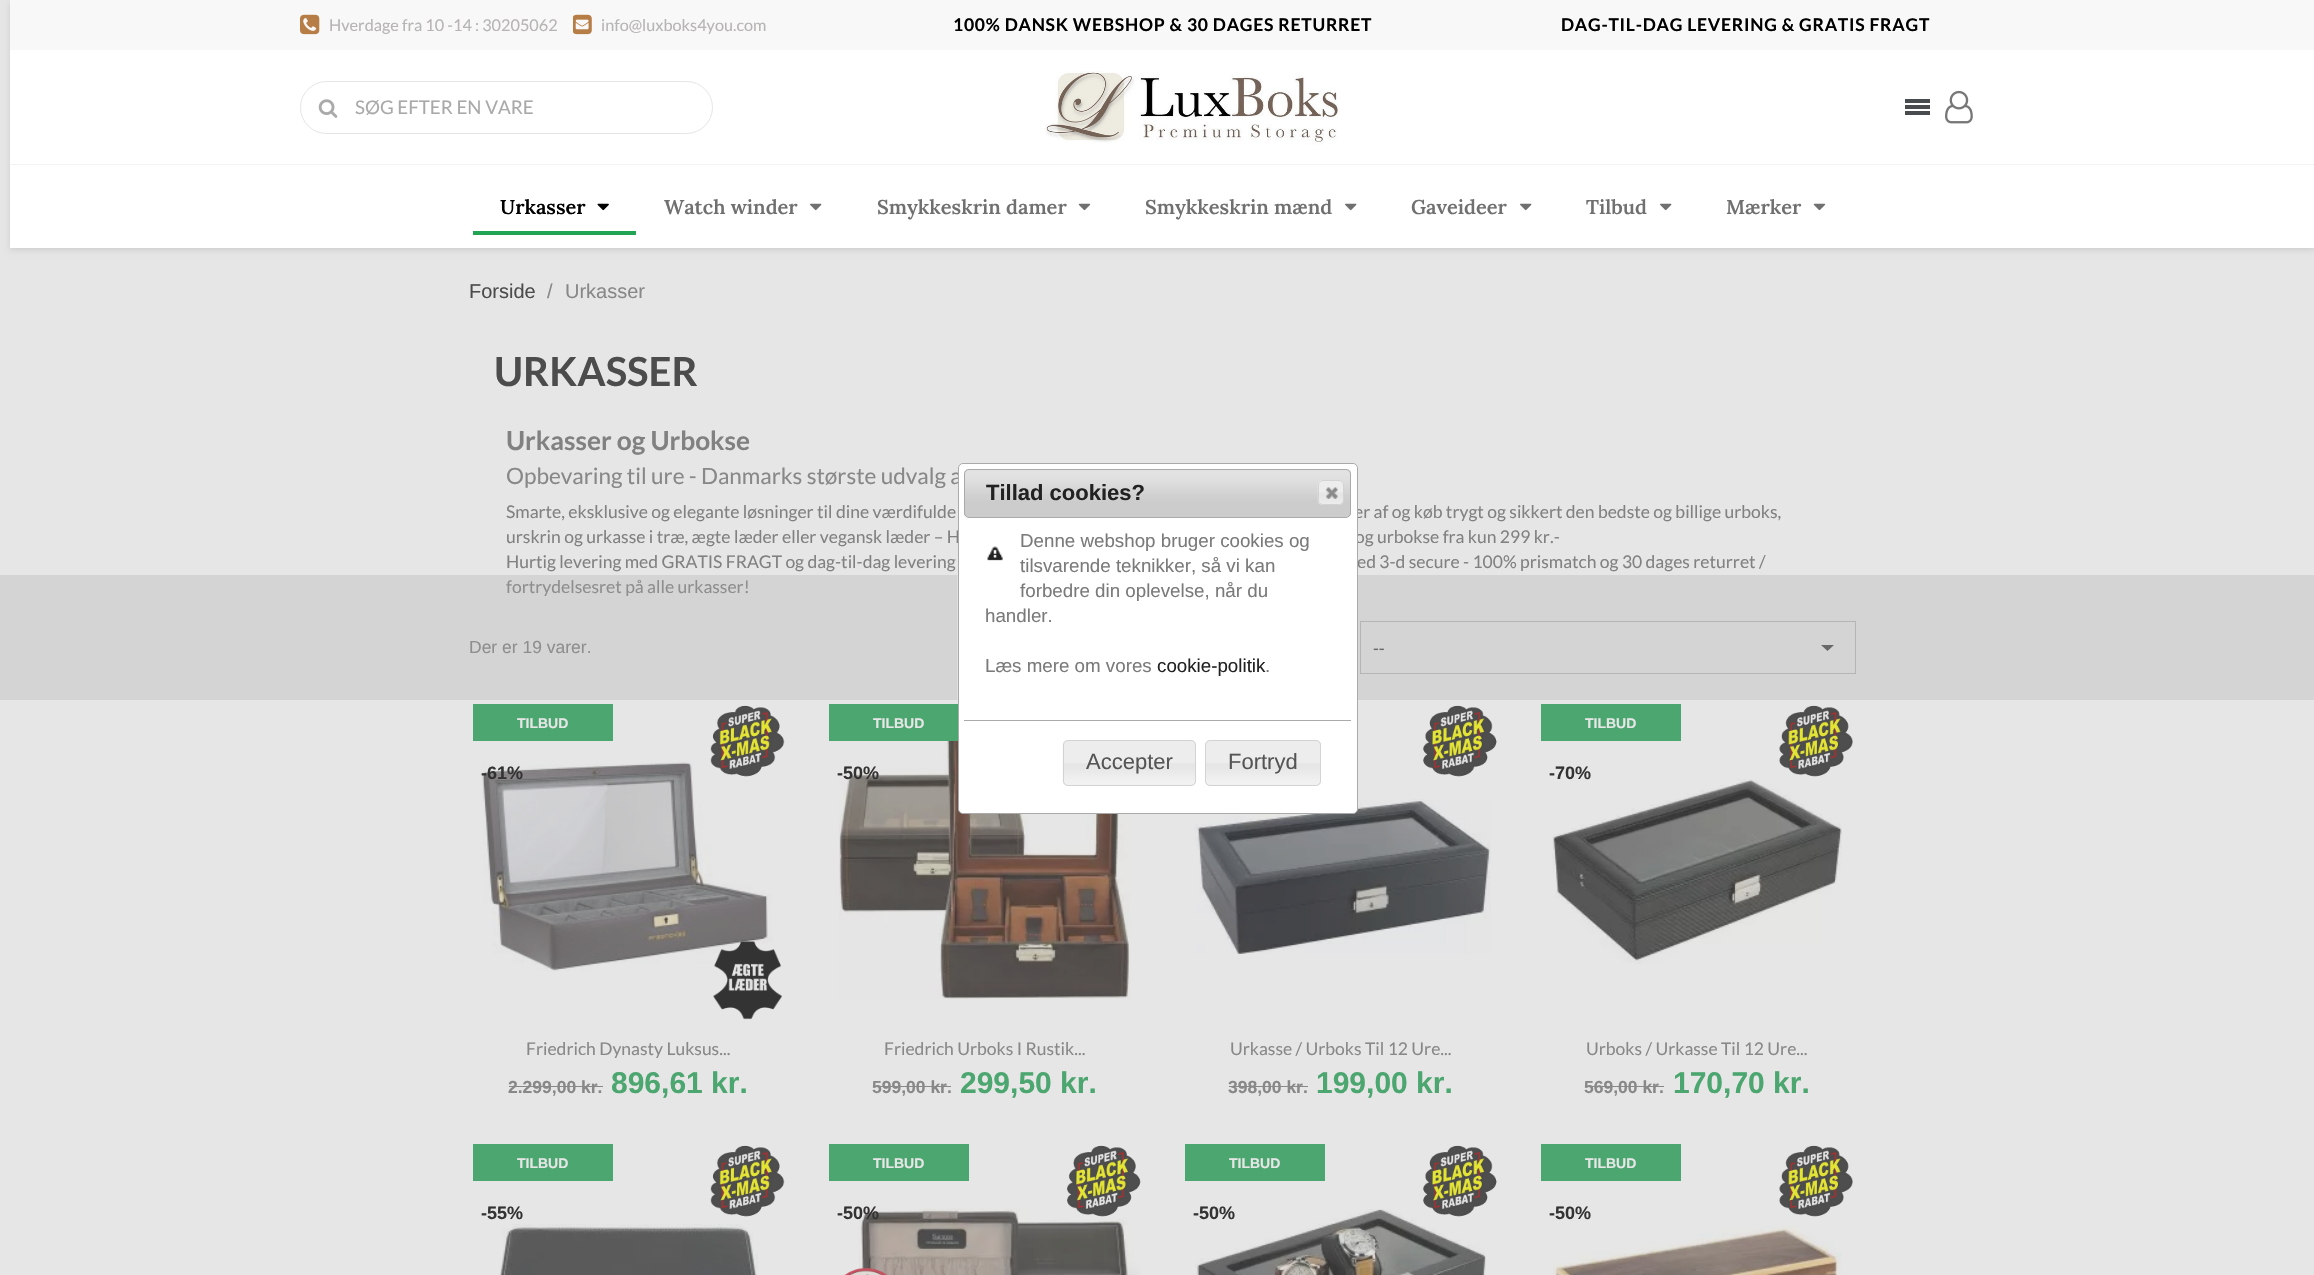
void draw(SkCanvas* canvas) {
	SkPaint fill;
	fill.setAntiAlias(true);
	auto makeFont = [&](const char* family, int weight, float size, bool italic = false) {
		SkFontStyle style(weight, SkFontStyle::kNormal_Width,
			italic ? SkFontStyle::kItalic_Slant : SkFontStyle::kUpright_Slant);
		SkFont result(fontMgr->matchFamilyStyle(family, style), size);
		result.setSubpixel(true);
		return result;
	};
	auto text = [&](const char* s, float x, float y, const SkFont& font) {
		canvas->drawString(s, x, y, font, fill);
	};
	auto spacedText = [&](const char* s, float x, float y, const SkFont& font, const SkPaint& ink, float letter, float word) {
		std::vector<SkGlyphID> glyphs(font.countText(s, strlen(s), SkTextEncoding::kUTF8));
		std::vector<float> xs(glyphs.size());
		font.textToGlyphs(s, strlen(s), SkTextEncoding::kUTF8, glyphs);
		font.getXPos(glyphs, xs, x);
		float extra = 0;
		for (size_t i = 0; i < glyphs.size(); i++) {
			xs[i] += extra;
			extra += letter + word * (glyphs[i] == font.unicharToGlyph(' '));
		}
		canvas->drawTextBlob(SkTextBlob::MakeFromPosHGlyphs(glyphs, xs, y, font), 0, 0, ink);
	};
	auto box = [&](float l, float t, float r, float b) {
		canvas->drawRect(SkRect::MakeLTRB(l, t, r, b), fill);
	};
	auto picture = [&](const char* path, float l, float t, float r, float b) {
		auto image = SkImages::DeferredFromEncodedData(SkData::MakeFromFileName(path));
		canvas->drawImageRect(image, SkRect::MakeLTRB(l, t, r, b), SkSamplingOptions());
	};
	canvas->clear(0xFFE6E6E6);
	fill.setColor(0xFFD4D4D4);
	box(0, 575, 2314, 700);
	fill.setColor(0x1C000000);
	fill.setMaskFilter(SkMaskFilter::MakeBlur(kNormal_SkBlurStyle, 3));
	canvas->drawRect(SkRect::MakeLTRB(10, 3, 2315, 250), fill);
	fill.setMaskFilter(nullptr);
	fill.setColor(0xFFFFFFFF);
	box(10, 50, 2314, 248);
	fill.setColor(0xFFF8F8F8);
	box(10, 0, 2314, 50);
	picture("image0.png", 300, 14, 320, 35);
	picture("image1.png", 573, 14, 592, 35);
	fill.setColor(0xFFF3F3F3);
	box(10, 164, 2314, 165);
	fill.setStyle(SkPaint::kStroke_Style);
	fill.setStrokeWidth(1);
	fill.setColor(0xFFE5E5E5);
	canvas->drawRoundRect(SkRect::MakeLTRB(300.5f, 81.5f, 712.5f, 133.5f), 26, 26, fill);
	picture("image2.png", 318, 99, 338, 118);
	picture("image3.png", 1045, 71, 1340, 145);
	fill.setStyle(SkPaint::kFill_Style);
	fill.setColor(0xFF494C4F);
	box(1905, 105, 1930, 109);
	box(1905, 99, 1930, 103);
	box(1905, 111, 1930, 115);
	picture("image4.png", 1945, 90, 1973, 124);
	picture("image5.png", 597, 203, 609, 211);
	fill.setColor(0xFF23A455);
	box(473, 231, 636, 235);
	picture("image6.png", 810, 203, 822, 211);
	picture("image7.png", 1078, 203, 1091, 211);
	picture("image6.png", 1345, 203, 1357, 211);
	picture("image6.png", 1520, 203, 1532, 211);
	picture("image6.png", 1660, 203, 1672, 211);
	picture("image7.png", 1813, 203, 1826, 211);
	fill.setStyle(SkPaint::kStroke_Style);
	fill.setColor(0xFFB5B5B5);
	canvas->drawRect(SkRect::MakeLTRB(1360.5f, 621.5f, 1855.5f, 673.5f), fill);
	fill.setStyle(SkPaint::kFill_Style);
	fill.setColor(0xFF696969);
	canvas->drawPath(SkPathBuilder().moveTo(1821, 645).lineTo(1834, 645).lineTo(1827.5f, 651).close().detach(), fill);
	fill.setColor(0xFF4CA66F);
	box(473, 704, 613, 741);
	picture("image9.png", 482, 762, 773, 971);
	picture("image8.png", 710, 705, 785, 777);
	picture("image10.png", 713, 941, 783, 1020);
	fill.setColor(0xFF888888);
	box(509, 1086, 603, 1087);
	fill.setColor(0xFF4CA66F);
	box(829, 704, 958, 741);
	picture("image11.png", 839, 741, 1131, 999);
	fill.setColor(0xFF888888);
	box(873, 1086, 951, 1087);
	picture("image12.png", 1423, 705, 1497, 777);
	picture("image13.png", 1195, 799, 1491, 954);
	box(1229, 1086, 1308, 1087);
	fill.setColor(0xFF4CA66F);
	box(1541, 704, 1681, 741);
	picture("image14.png", 1779, 705, 1853, 777);
	picture("image15.png", 1552, 779, 1842, 964);
	fill.setColor(0xFF888888);
	box(1585, 1086, 1664, 1087);
	fill.setColor(0xFF4CA66F);
	box(473, 1144, 613, 1181);
	picture("image8.png", 710, 1145, 785, 1217);
	picture("image16.png", 499, 1224, 758, 1275);
	box(829, 1144, 969, 1181);
	picture("image18.png", 859, 1208, 1141, 1275);
	picture("image17.png", 1067, 1145, 1141, 1217);
	picture("image19.png", 844, 1267, 888, 1275);
	box(1185, 1144, 1325, 1181);
	picture("image20.png", 1195, 1209, 1486, 1275);
	picture("image12.png", 1423, 1145, 1497, 1217);
	box(1541, 1144, 1681, 1181);
	picture("image14.png", 1779, 1145, 1853, 1217);
	picture("image21.png", 1553, 1226, 1842, 1275);
	fill.setColor(0xFFDFDFDF);
	box(957, 575, 958, 700);
	auto font1 = makeFont("Lato", 400, 16.25f);
	fill.setColor(0xFFB7B4B4);
	text("Hverdage fra 10 -14 : 30205062", 329, 31, font1);
	text("info@luxboks4you.com", 601, 31, font1);
	auto font2 = makeFont("Lato", 700, 17.5f);
	fill.setColor(0xFF000000);
	spacedText("100% DANSK WEBSHOP & 30 DAGES RETURRET", 953, 31, font2, fill, 0.75f, 0);
	spacedText("DAG-TIL-DAG LEVERING & GRATIS FRAGT", 1561, 31, font2, fill, 0.75f, 0);
	auto font3 = makeFont("Lato", 400, 18.75f);
	fill.setColor(0xFFA9A9A9);
	text("SØG EFTER EN VARE", 355, 114, font3);
	auto font4 = makeFont("Lora", 600, 20);
	fill.setColor(0xFF000000);
	text("Urkasser", 500, 214, font4);
	fill.setColor(0xFF707070);
	text("Watch winder", 664, 214, font4);
	text("Smykkeskrin damer", 877, 214, font4);
	text("Smykkeskrin mænd", 1145, 214, font4);
	text("Gaveideer", 1411, 214, font4);
	text("Tilbud", 1586, 214, font4);
	text("Mærker", 1726, 214, font4);
	auto font5 = makeFont("Liberation Sans", 400, 20);
	fill.setColor(0xFF4C4C4C);
	text("Forside", 469, 298, font5);
	fill.setColor(0xFF888888);
	text("/", 547, 298, font5);
	text("Urkasser", 565, 298, font5);
	auto font6 = makeFont("Lato", 700, 40);
	fill.setColor(0xFF4C4C4C);
	text("URKASSER", 494, 386, font6);
	auto font7 = makeFont("Lato", 700, 26.25f);
	fill.setColor(0xFF818181);
	text("Urkasser og Urbokse", 506, 450, font7);
	auto font8 = makeFont("Lato", 400, 22.5f);
	fill.setColor(0xFF888888);
	text("Opbevaring til ure - Danmarks største udvalg a", 506, 484, font8);
	auto font9 = makeFont("Lato", 400, 17.5f);
	fill.setColor(0xFF818181);
	text("Smarte, eksklusive og elegante løsninger til dine værdifulde", 506, 518, font9);
	text("er af og køb trygt og sikkert den bedste og billige urboks,", 1354, 518, font9);
	text("urskrin og urkasse i træ, ægte læder eller vegansk læder – H", 506, 543, font9);
	text("og urbokse fra kun 299 kr.-", 1355, 543, font9);
	text("Hurtig levering med GRATIS FRAGT og dag-til-dag levering", 506, 568, font9);
	text("ed 3-d secure - 100% prismatch og 30 dages returret /", 1357, 568, font9);
	fill.setColor(0xFF8E8E8E);
	text("fortrydelsesret på alle urkasser!", 506, 593, font9);
	auto font10 = makeFont("Liberation Sans", 400, 17.5f);
	text("Der er 19 varer.", 469, 653, font10);
	fill.setColor(0xFF696969);
	text("--", 1373, 654, font10);
	auto font11 = makeFont("Liberation Sans", 700, 14);
	fill.setColor(0xFFE6E6E6);
	text("TILBUD", 517, 728, font11);
	auto font12 = makeFont("Liberation Sans", 700, 18);
	fill.setColor(0xFF333333);
	text("-61%", 481, 779, font12);
	fill.setColor(0xFF888888);
	text("Friedrich Dynasty Luksus...", 526, 1055, font9);
	auto font13 = makeFont("Liberation Sans", 700, 17.5f);
	text("2.299,00 kr.", 508, 1093, font13);
	auto font14 = makeFont("Liberation Sans", 700, 30);
	fill.setColor(0xFF4CA66F);
	text("896,61 kr.", 611, 1093, font14);
	fill.setColor(0xFFE6E6E6);
	text("TILBUD", 873, 728, font11);
	fill.setColor(0xFF333333);
	text("-50%", 837, 779, font12);
	fill.setColor(0xFF888888);
	text("Friedrich Urboks I Rustik...", 884, 1055, font9);
	text("599,00 kr.", 872, 1093, font13);
	fill.setColor(0xFF4CA66F);
	text("299,50 kr.", 960, 1093, font14);
	fill.setColor(0xFF888888);
	text("Urkasse / Urboks Til 12 Ure...", 1230, 1055, font9);
	text("398,00 kr.", 1228, 1093, font13);
	fill.setColor(0xFF4CA66F);
	text("199,00 kr.", 1316, 1093, font14);
	fill.setColor(0xFFE6E6E6);
	text("TILBUD", 1585, 728, font11);
	fill.setColor(0xFF333333);
	text("-70%", 1549, 779, font12);
	fill.setColor(0xFF888888);
	text("Urboks / Urkasse Til 12 Ure...", 1586, 1055, font9);
	text("569,00 kr.", 1584, 1093, font13);
	fill.setColor(0xFF4CA66F);
	text("170,70 kr.", 1673, 1093, font14);
	fill.setColor(0xFFE6E6E6);
	text("TILBUD", 517, 1168, font11);
	fill.setColor(0xFF333333);
	text("-55%", 481, 1219, font12);
	fill.setColor(0xFFE6E6E6);
	text("TILBUD", 873, 1168, font11);
	fill.setColor(0xFF333333);
	text("-50%", 837, 1219, font12);
	fill.setColor(0xFFE6E6E6);
	text("TILBUD", 1229, 1168, font11);
	fill.setColor(0xFF333333);
	text("-50%", 1193, 1219, font12);
	fill.setColor(0xFFE6E6E6);
	text("TILBUD", 1585, 1168, font11);
	fill.setColor(0xFF333333);
	text("-50%", 1549, 1219, font12);
	fill.setColor(0xFFFFFFFF);
	canvas->drawRoundRect(SkRect::MakeLTRB(958.5f, 463.5f, 1357.5f, 813.5f), 4.5f, 4.5f, fill);
	fill.setStyle(SkPaint::kStroke_Style);
	fill.setColor(0xFFAAAAAA);
	canvas->drawRoundRect(SkRect::MakeLTRB(958.5f, 463.5f, 1357.5f, 813.5f), 4.5f, 4.5f, fill);
	picture("image22.png", 964, 469, 1351, 517);
	canvas->drawRoundRect(SkRect::MakeLTRB(964.5f, 469.5f, 1350.5f, 517.5f), 4.5f, 4.5f, fill);
	auto font15 = makeFont("Liberation Sans", 700, 22);
	fill.setStyle(SkPaint::kFill_Style);
	fill.setColor(0xFF222222);
	text("Tillad cookies?", 986, 500, font15);
	picture("image23.png", 1317, 480, 1344, 505);
	fill.setStyle(SkPaint::kStroke_Style);
	fill.setColor(0xFFD3D3D3);
	canvas->drawRoundRect(SkRect::MakeLTRB(1318.5f, 480.5f, 1343.5f, 504.5f), 4.5f, 4.5f, fill);
	picture("image24.png", 1326, 487, 1338, 499);
	auto font16 = makeFont("Liberation Sans", 400, 18.75f);
	fill.setStyle(SkPaint::kFill_Style);
	fill.setColor(0xFF7A7A7A);
	text("Denne webshop bruger cookies og", 1020, 547, font16);
	text("tilsvarende teknikker, så vi kan", 1020, 572, font16);
	text("forbedre din oplevelse, når du", 1020, 597, font16);
	text("handler.", 985, 622, font16);
	text("Læs mere om vores", 985, 672, font16);
	fill.setColor(0xFF222222);
	text("cookie-politik", 1157, 672, font16);
	fill.setColor(0xFF7A7A7A);
	text(".", 1265, 672, font16);
	picture("image25.png", 987, 546, 1003, 561);
	fill.setColor(0xFFAAAAAA);
	box(964, 720, 1351, 721);
	picture("image26.png", 1062, 740, 1196, 786);
	fill.setStyle(SkPaint::kStroke_Style);
	fill.setColor(0xFFD3D3D3);
	canvas->drawRoundRect(SkRect::MakeLTRB(1063.5f, 740.5f, 1195.5f, 785.5f), 4.5f, 4.5f, fill);
	auto font17 = makeFont("Liberation Sans", 400, 22);
	fill.setStyle(SkPaint::kFill_Style);
	fill.setColor(0xFF555555);
	text("Accepter", 1086, 769, font17);
	picture("image27.png", 1205, 740, 1321, 786);
	fill.setStyle(SkPaint::kStroke_Style);
	fill.setColor(0xFFD3D3D3);
	canvas->drawRoundRect(SkRect::MakeLTRB(1205.5f, 740.5f, 1320.5f, 785.5f), 4.5f, 4.5f, fill);
	fill.setStyle(SkPaint::kFill_Style);
	fill.setColor(0xFF555555);
	text("Fortryd", 1228, 769, font17);
}
